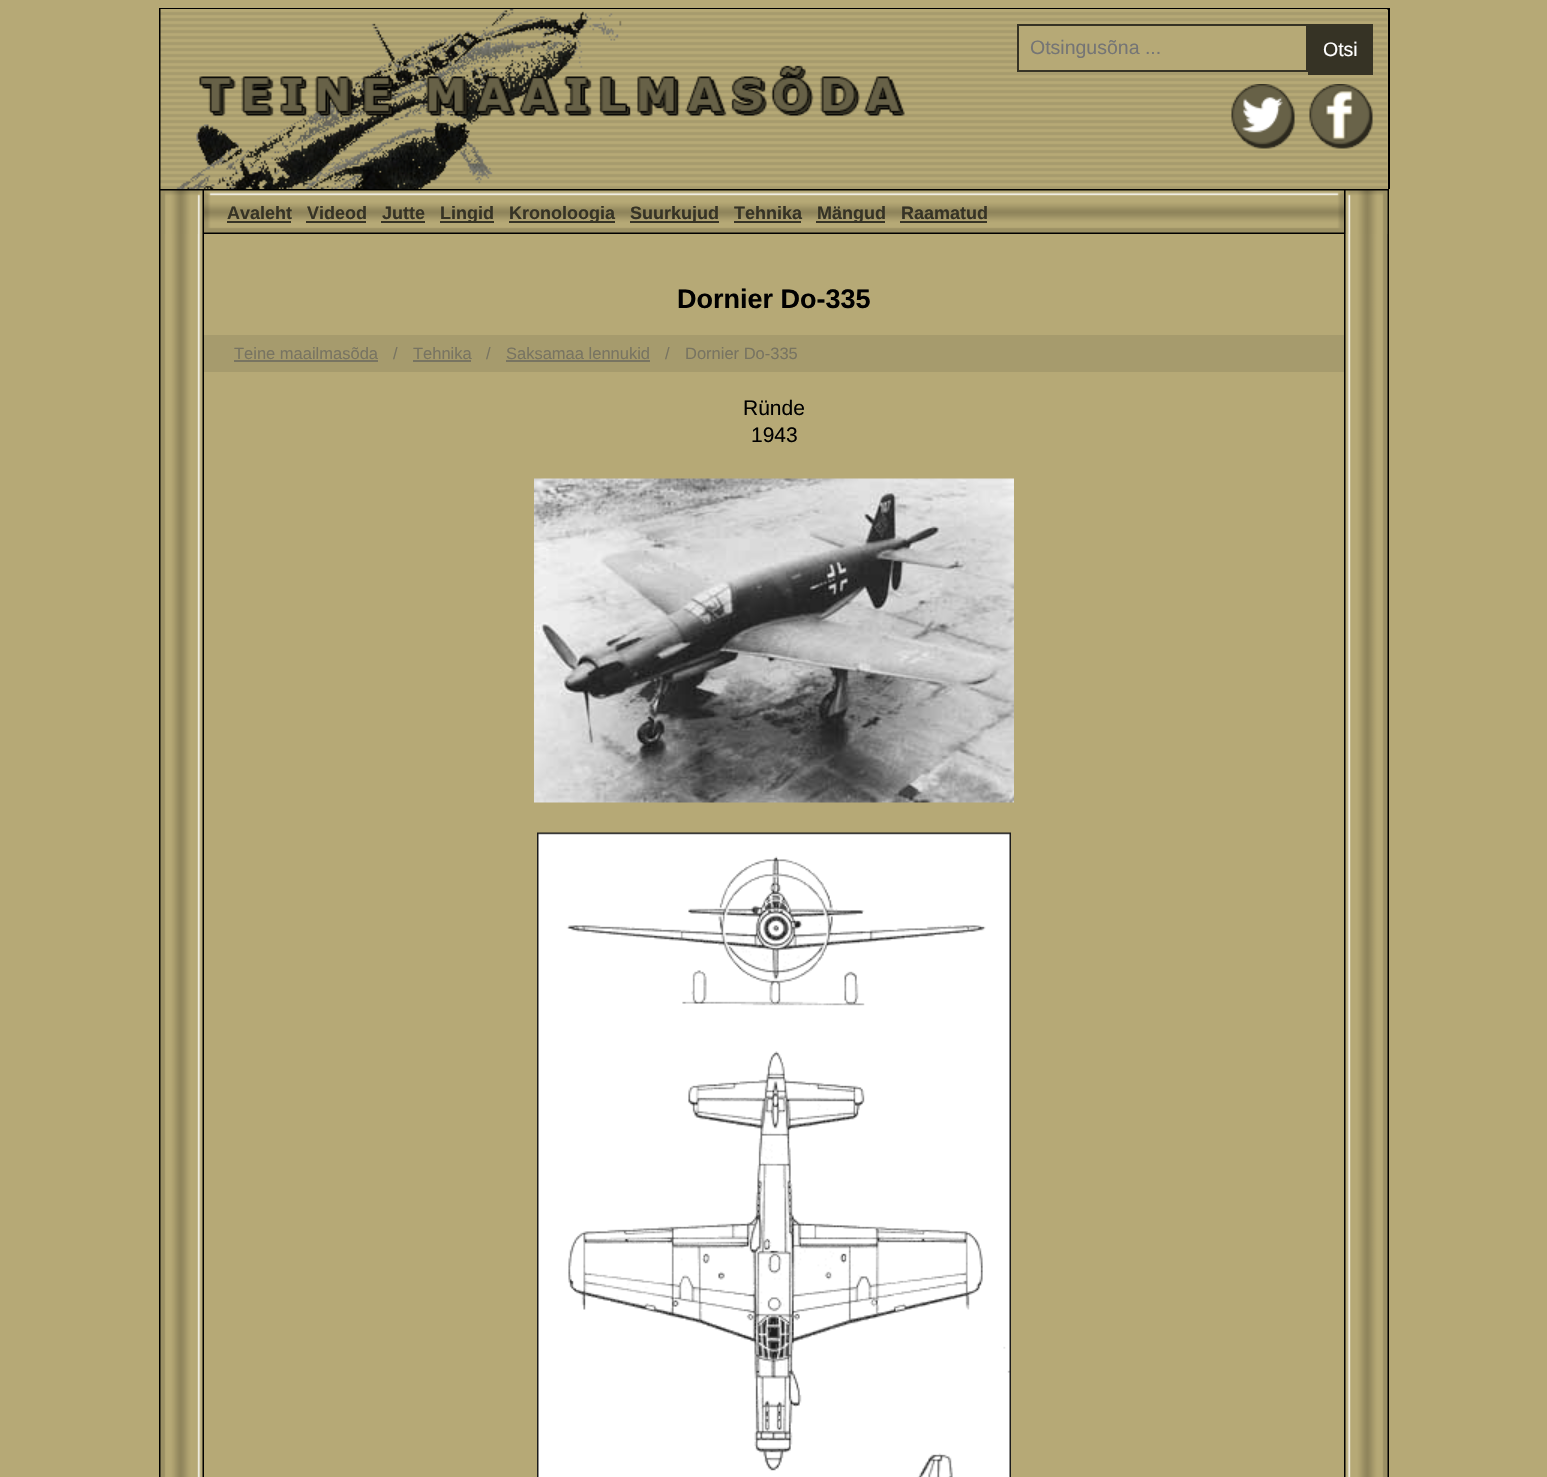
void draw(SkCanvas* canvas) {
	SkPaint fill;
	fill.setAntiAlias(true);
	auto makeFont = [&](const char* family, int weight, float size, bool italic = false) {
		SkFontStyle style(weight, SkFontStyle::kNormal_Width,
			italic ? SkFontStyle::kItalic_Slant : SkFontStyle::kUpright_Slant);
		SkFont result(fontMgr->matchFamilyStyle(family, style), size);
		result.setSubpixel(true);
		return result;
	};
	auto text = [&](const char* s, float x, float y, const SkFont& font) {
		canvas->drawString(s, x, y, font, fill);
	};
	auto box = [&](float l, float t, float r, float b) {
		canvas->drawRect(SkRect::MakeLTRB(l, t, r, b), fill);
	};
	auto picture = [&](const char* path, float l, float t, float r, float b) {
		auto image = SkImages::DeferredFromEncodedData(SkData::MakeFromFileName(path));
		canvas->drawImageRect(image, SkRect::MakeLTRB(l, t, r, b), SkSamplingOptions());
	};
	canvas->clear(0xFFB6A976);
	fill.setColor(0xFF000000);
	box(159, 8, 1389, 10);
	box(1388, 8, 1390, 189);
	box(159, 8, 161, 189);
	picture("image0.png", 160, 9, 1388, 189);
	fill.setColor(0xFFB6A976);
	canvas->drawRect(SkRect::MakeLTRB(1018, 25, 1307, 71), fill);
	fill.setStyle(SkPaint::kStroke_Style);
	fill.setStrokeWidth(2);
	fill.setColor(0xFF363325);
	canvas->drawRect(SkRect::MakeLTRB(1018, 25, 1307, 71), fill);
	fill.setStyle(SkPaint::kFill_Style);
	box(1308, 24, 1373, 75);
	picture("image1.png", 199, 65, 905, 116);
	picture("image2.png", 1231, 84, 1295, 149);
	picture("image3.png", 1309, 84, 1373, 149);
	picture("image4.png", 204, 189, 1344, 234);
	picture("image5.png", 159, 189, 204, 234);
	box(227, 221, 291, 223);
	box(306, 221, 366, 223);
	box(381, 221, 425, 223);
	box(440, 221, 494, 223);
	box(509, 221, 615, 223);
	box(630, 221, 719, 223);
	box(734, 221, 801, 223);
	box(816, 221, 885, 223);
	box(900, 221, 987, 223);
	picture("image6.png", 1344, 189, 1389, 234);
	picture("image7.png", 159, 234, 204, 1477);
	fill.setColor(0xFFA69B6D);
	box(204, 335, 1344, 372);
	fill.setColor(0xFF787461);
	box(234, 360, 378, 362);
	box(413, 360, 471, 362);
	box(506, 360, 650, 362);
	picture("image8.png", 534, 478, 1014, 803);
	picture("image9.png", 537, 832, 1011, 1477);
	picture("image10.png", 1344, 234, 1389, 1477);
	auto font1 = makeFont("Liberation Sans", 400, 19.5f);
	fill.setColor(0xFF757575);
	text("Otsingusõna ...", 1030, 54, font1);
	fill.setColor(0xFFFFFFFF);
	text("Otsi", 1323, 56, font1);
	auto font2 = makeFont("Liberation Sans", 700, 18);
	fill.setColor(0xFF363325);
	text("Avaleht", 227, 219, font2);
	text("Videod", 307, 219, font2);
	text("Jutte", 382, 219, font2);
	text("Lingid", 440, 219, font2);
	text("Kronoloogia", 509, 219, font2);
	text("Suurkujud", 630, 219, font2);
	text("Tehnika", 734, 219, font2);
	text("Mängud", 817, 219, font2);
	text("Raamatud", 901, 219, font2);
	auto font3 = makeFont("Liberation Sans", 700, 27);
	fill.setColor(0xFF000000);
	text("Dornier Do-335", 677, 308, font3);
	auto font4 = makeFont("Liberation Sans", 400, 16.5f);
	fill.setColor(0xFF787461);
	text("Teine maailmasõda", 234, 359, font4);
	text("/", 393, 359, font4);
	text("Tehnika", 413, 359, font4);
	text("/", 486, 359, font4);
	text("Saksamaa lennukid", 506, 359, font4);
	text("/", 665, 359, font4);
	text("Dornier Do-335", 685, 359, font4);
	auto font5 = makeFont("Liberation Sans", 400, 21);
	fill.setColor(0xFF000000);
	text("Ründe", 743, 415, font5);
	text("1943", 751, 442, font5);
}
